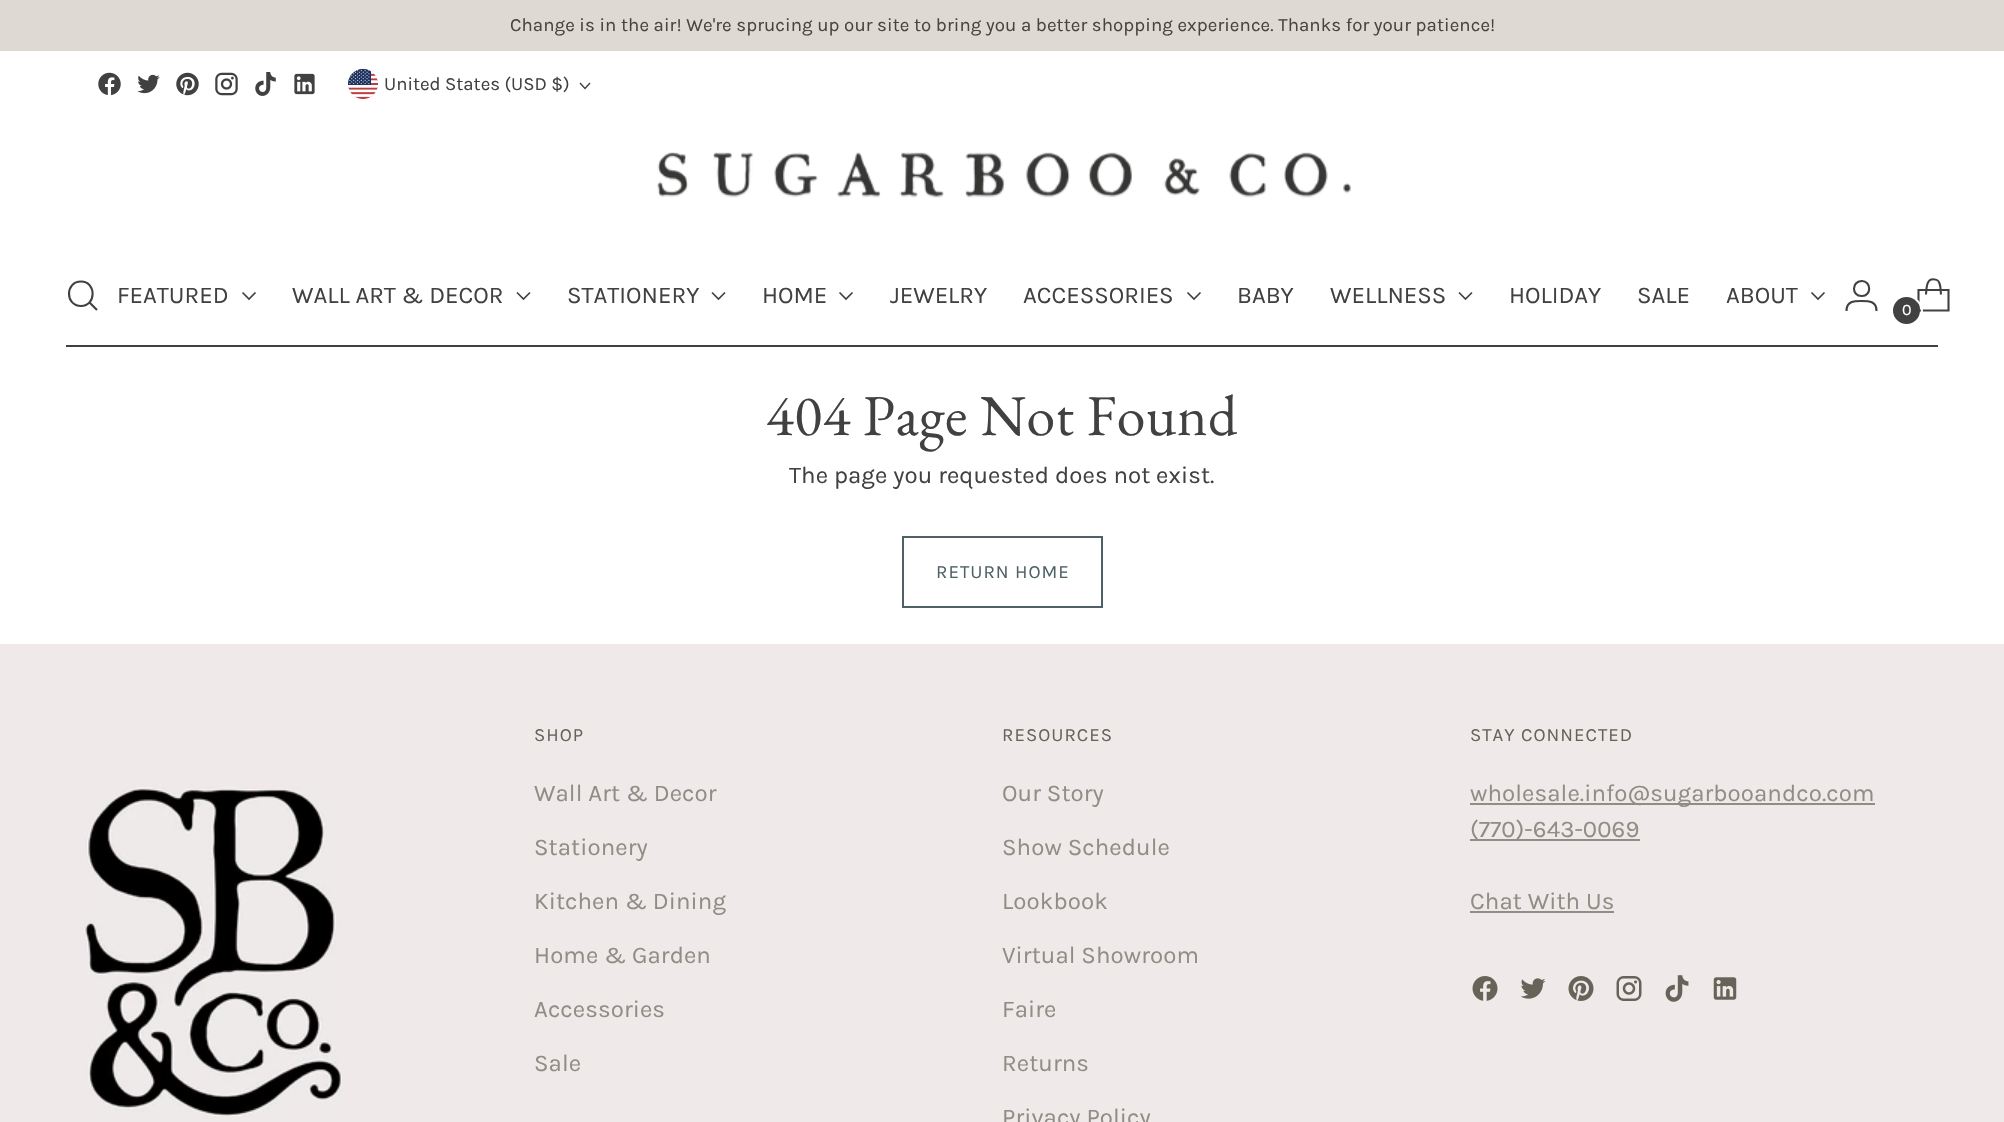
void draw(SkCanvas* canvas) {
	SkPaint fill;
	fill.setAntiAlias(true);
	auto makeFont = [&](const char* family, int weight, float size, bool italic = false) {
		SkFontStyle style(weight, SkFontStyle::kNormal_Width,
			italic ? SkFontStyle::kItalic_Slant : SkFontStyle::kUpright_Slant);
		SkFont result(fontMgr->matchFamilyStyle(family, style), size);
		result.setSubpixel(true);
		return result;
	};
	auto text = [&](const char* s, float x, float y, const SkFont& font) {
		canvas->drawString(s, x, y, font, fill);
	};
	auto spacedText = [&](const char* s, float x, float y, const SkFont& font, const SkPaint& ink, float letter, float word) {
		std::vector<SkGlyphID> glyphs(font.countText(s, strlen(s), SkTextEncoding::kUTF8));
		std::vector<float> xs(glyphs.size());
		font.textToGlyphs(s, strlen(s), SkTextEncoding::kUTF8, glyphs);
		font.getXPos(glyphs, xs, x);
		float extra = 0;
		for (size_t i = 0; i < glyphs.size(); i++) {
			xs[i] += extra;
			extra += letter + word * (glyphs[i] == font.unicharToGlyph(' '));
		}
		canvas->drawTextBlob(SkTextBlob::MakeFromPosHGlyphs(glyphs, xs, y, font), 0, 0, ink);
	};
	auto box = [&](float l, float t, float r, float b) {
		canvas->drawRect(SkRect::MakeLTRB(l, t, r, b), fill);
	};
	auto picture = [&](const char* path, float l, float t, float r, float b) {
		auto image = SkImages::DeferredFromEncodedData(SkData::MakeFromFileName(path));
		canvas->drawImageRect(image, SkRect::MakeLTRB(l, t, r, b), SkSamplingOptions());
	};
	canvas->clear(0xFFFFFFFF);
	fill.setColor(0xFFDFD9D4);
	box(0, 0, 2004, 51);
	fill.setColor(0xFF414141);
	box(66, 345, 1938, 347);
	picture("image0.png", 98, 72, 121, 96);
	picture("image1.png", 137, 74, 160, 94);
	picture("image2.png", 176, 72, 199, 96);
	picture("image3.png", 215, 72, 238, 96);
	picture("image4.png", 255, 72, 276, 96);
	picture("image5.png", 294, 73, 315, 95);
	picture("image6.png", 348, 69, 378, 99);
	fill.setStyle(SkPaint::kStroke_Style);
	fill.setStrokeWidth(1.4f);
	canvas->drawPath(SkPathBuilder().moveTo(580, 83).lineTo(585, 88.5f).lineTo(590, 83).detach(), fill);
	picture("image7.png", 657, 152, 1351, 198);
	fill.setStrokeWidth(2.1f);
	fill.setStrokeCap(SkPaint::kRound_Cap);
	canvas->drawPath(SkPathBuilder().moveTo(81, 306).cubicTo(96.5f, 306, 96.5f, 281.5f, 81, 281.5f).cubicTo(65, 281.5f, 65, 306, 81, 306).close().detach(), fill);
	fill.setStrokeCap(SkPaint::kButt_Cap);
	canvas->drawPath(SkPathBuilder().moveTo(89.5f, 302.5f).lineTo(97, 310).detach(), fill);
	fill.setStrokeWidth(1.7f);
	canvas->drawPath(SkPathBuilder().moveTo(242.5f, 292.5f).lineTo(249, 299).lineTo(255.5f, 292.5f).detach(), fill);
	canvas->drawPath(SkPathBuilder().moveTo(517, 292.5f).lineTo(523.5f, 299).lineTo(530, 292.5f).detach(), fill);
	canvas->drawPath(SkPathBuilder().moveTo(712, 292.5f).lineTo(718.5f, 299).lineTo(725, 292.5f).detach(), fill);
	canvas->drawPath(SkPathBuilder().moveTo(839.5f, 292.5f).lineTo(846, 299).lineTo(852.5f, 292.5f).detach(), fill);
	canvas->drawPath(SkPathBuilder().moveTo(1187.5f, 292.5f).lineTo(1194, 299).lineTo(1200.5f, 292.5f).detach(), fill);
	canvas->drawPath(SkPathBuilder().moveTo(1459, 292.5f).lineTo(1465.5f, 299).lineTo(1472, 292.5f).detach(), fill);
	canvas->drawPath(SkPathBuilder().moveTo(1811.5f, 292.5f).lineTo(1818, 299).lineTo(1824.5f, 292.5f).detach(), fill);
	fill.setStrokeWidth(2.1f);
	canvas->drawPath(SkPathBuilder().moveTo(1861.5f, 296).cubicTo(1872, 296.5f, 1871.5f, 280.5f, 1861.5f, 281).cubicTo(1851.5f, 281.5f, 1851.5f, 296, 1861.5f, 296).close().moveTo(1846.5f, 311).cubicTo(1846.5f, 301, 1854, 301, 1861.5f, 301).cubicTo(1869, 301, 1876.5f, 301, 1876.5f, 311).detach(), fill);
	fill.setStrokeJoin(SkPaint::kBevel_Join);
	canvas->drawPath(SkPathBuilder().moveTo(1941, 294.5f).cubicTo(1940.5f, 291, 1941, 287, 1939.5f, 283.5f).cubicTo(1939, 281.5f, 1937, 279.5f, 1935, 279.5f).cubicTo(1926, 277.5f, 1926.5f, 289, 1926, 294.5f).detach(), fill);
	fill.setStrokeJoin(SkPaint::kMiter_Join);
	canvas->drawPath(SkPathBuilder().moveTo(1948.5f, 310.5f).lineTo(1948.5f, 290).lineTo(1918.5f, 290).lineTo(1918.5f, 310.5f).close().detach(), fill);
	fill.setStrokeWidth(2);
	fill.setColor(0xFFFFFFFF);
	canvas->drawCircle(1907.5f, 311.5f, 14.5f, fill);
	fill.setStyle(SkPaint::kFill_Style);
	fill.setColor(0xFF414141);
	canvas->drawCircle(1906.5f, 310.5f, 13.5f, fill);
	fill.setStyle(SkPaint::kStroke_Style);
	fill.setColor(0xFF4E6167);
	canvas->drawRect(SkRect::MakeLTRB(903, 537, 1102, 607), fill);
	fill.setStyle(SkPaint::kFill_Style);
	fill.setColor(0xFFEFEAE9);
	box(0, 644, 2004, 1122);
	picture("image8.png", 84, 787, 342, 1117);
	fill.setColor(0xFF918C84);
	box(1470, 803, 1875, 805);
	box(1470, 839, 1640, 841);
	box(1470, 911, 1614, 913);
	picture("image9.png", 1472, 976, 1498, 1001);
	picture("image10.png", 1520, 978, 1546, 999);
	picture("image11.png", 1568, 976, 1594, 1001);
	picture("image12.png", 1616, 976, 1642, 1001);
	picture("image13.png", 1665, 975, 1689, 1002);
	picture("image14.png", 1713, 977, 1737, 1000);
	auto font1 = makeFont("Karla", 400, 18.65f);
	fill.setColor(0xFF48453D);
	spacedText("Change is in the air! We're sprucing up our site to bring you a better shopping experience. Thanks for your patience!", 510, 31, font1, fill, 0.09f, 0);
	fill.setColor(0xFF414141);
	text("United States (USD $)", 384, 90, font1);
	auto font2 = makeFont("Karla", 400, 24);
	text("FEATURED", 117, 303, font2);
	text("WALL ART & DECOR", 292, 303, font2);
	text("STATIONERY", 567, 303, font2);
	text("HOME", 762, 303, font2);
	text("JEWELRY", 890, 303, font2);
	text("ACCESSORIES", 1023, 303, font2);
	text("BABY", 1237, 303, font2);
	text("WELLNESS", 1330, 303, font2);
	text("HOLIDAY", 1509, 303, font2);
	text("SALE", 1637, 303, font2);
	text("ABOUT", 1726, 303, font2);
	auto font3 = makeFont("Karla", 400, 16);
	fill.setColor(0xFFFFFFFF);
	spacedText("0", 1902, 315, font3, fill, 0.1f, 0);
	auto font4 = makeFont("EB Garamond", 400, 57.75f);
	fill.setColor(0xFF414141);
	spacedText("404 Page Not Found", 766, 435, font4, fill, 0.6f, 0);
	spacedText("The page you requested does not exist.", 789, 483, font2, fill, 0.1f, 0);
	fill.setColor(0xFF4E6167);
	spacedText("RETURN HOME", 936, 578, font1, fill, 1, 0);
	fill.setColor(0xFF686359);
	spacedText("SHOP", 534, 741, font1, fill, 1, 0);
	fill.setColor(0xFF918C84);
	spacedText("Wall Art & Decor", 534, 801, font2, fill, 0.1f, 0);
	spacedText("Stationery", 534, 855, font2, fill, 0.1f, 0);
	spacedText("Kitchen & Dining", 534, 909, font2, fill, 0.1f, 0);
	spacedText("Home & Garden", 534, 963, font2, fill, 0.1f, 0);
	spacedText("Accessories", 534, 1017, font2, fill, 0.1f, 0);
	spacedText("Sale", 534, 1071, font2, fill, 0.1f, 0);
	fill.setColor(0xFF686359);
	spacedText("RESOURCES", 1002, 741, font1, fill, 1, 0);
	fill.setColor(0xFF918C84);
	spacedText("Our Story", 1002, 801, font2, fill, 0.1f, 0);
	spacedText("Show Schedule", 1002, 855, font2, fill, 0.1f, 0);
	spacedText("Lookbook", 1002, 909, font2, fill, 0.1f, 0);
	spacedText("Virtual Showroom", 1002, 963, font2, fill, 0.1f, 0);
	spacedText("Faire", 1002, 1017, font2, fill, 0.1f, 0);
	spacedText("Returns", 1002, 1071, font2, fill, 0.1f, 0);
	spacedText("Privacy Policy", 1002, 1125, font2, fill, 0.1f, 0);
	fill.setColor(0xFF686359);
	spacedText("STAY CONNECTED", 1470, 741, font1, fill, 1, 0);
	fill.setColor(0xFF918C84);
	spacedText("wholesale.info@sugarbooandco.com", 1470, 801, font2, fill, 0.1f, 0);
	spacedText("(770)-643-0069", 1470, 837, font2, fill, 0.1f, 0);
	spacedText("Chat With Us", 1470, 909, font2, fill, 0.1f, 0);
}
